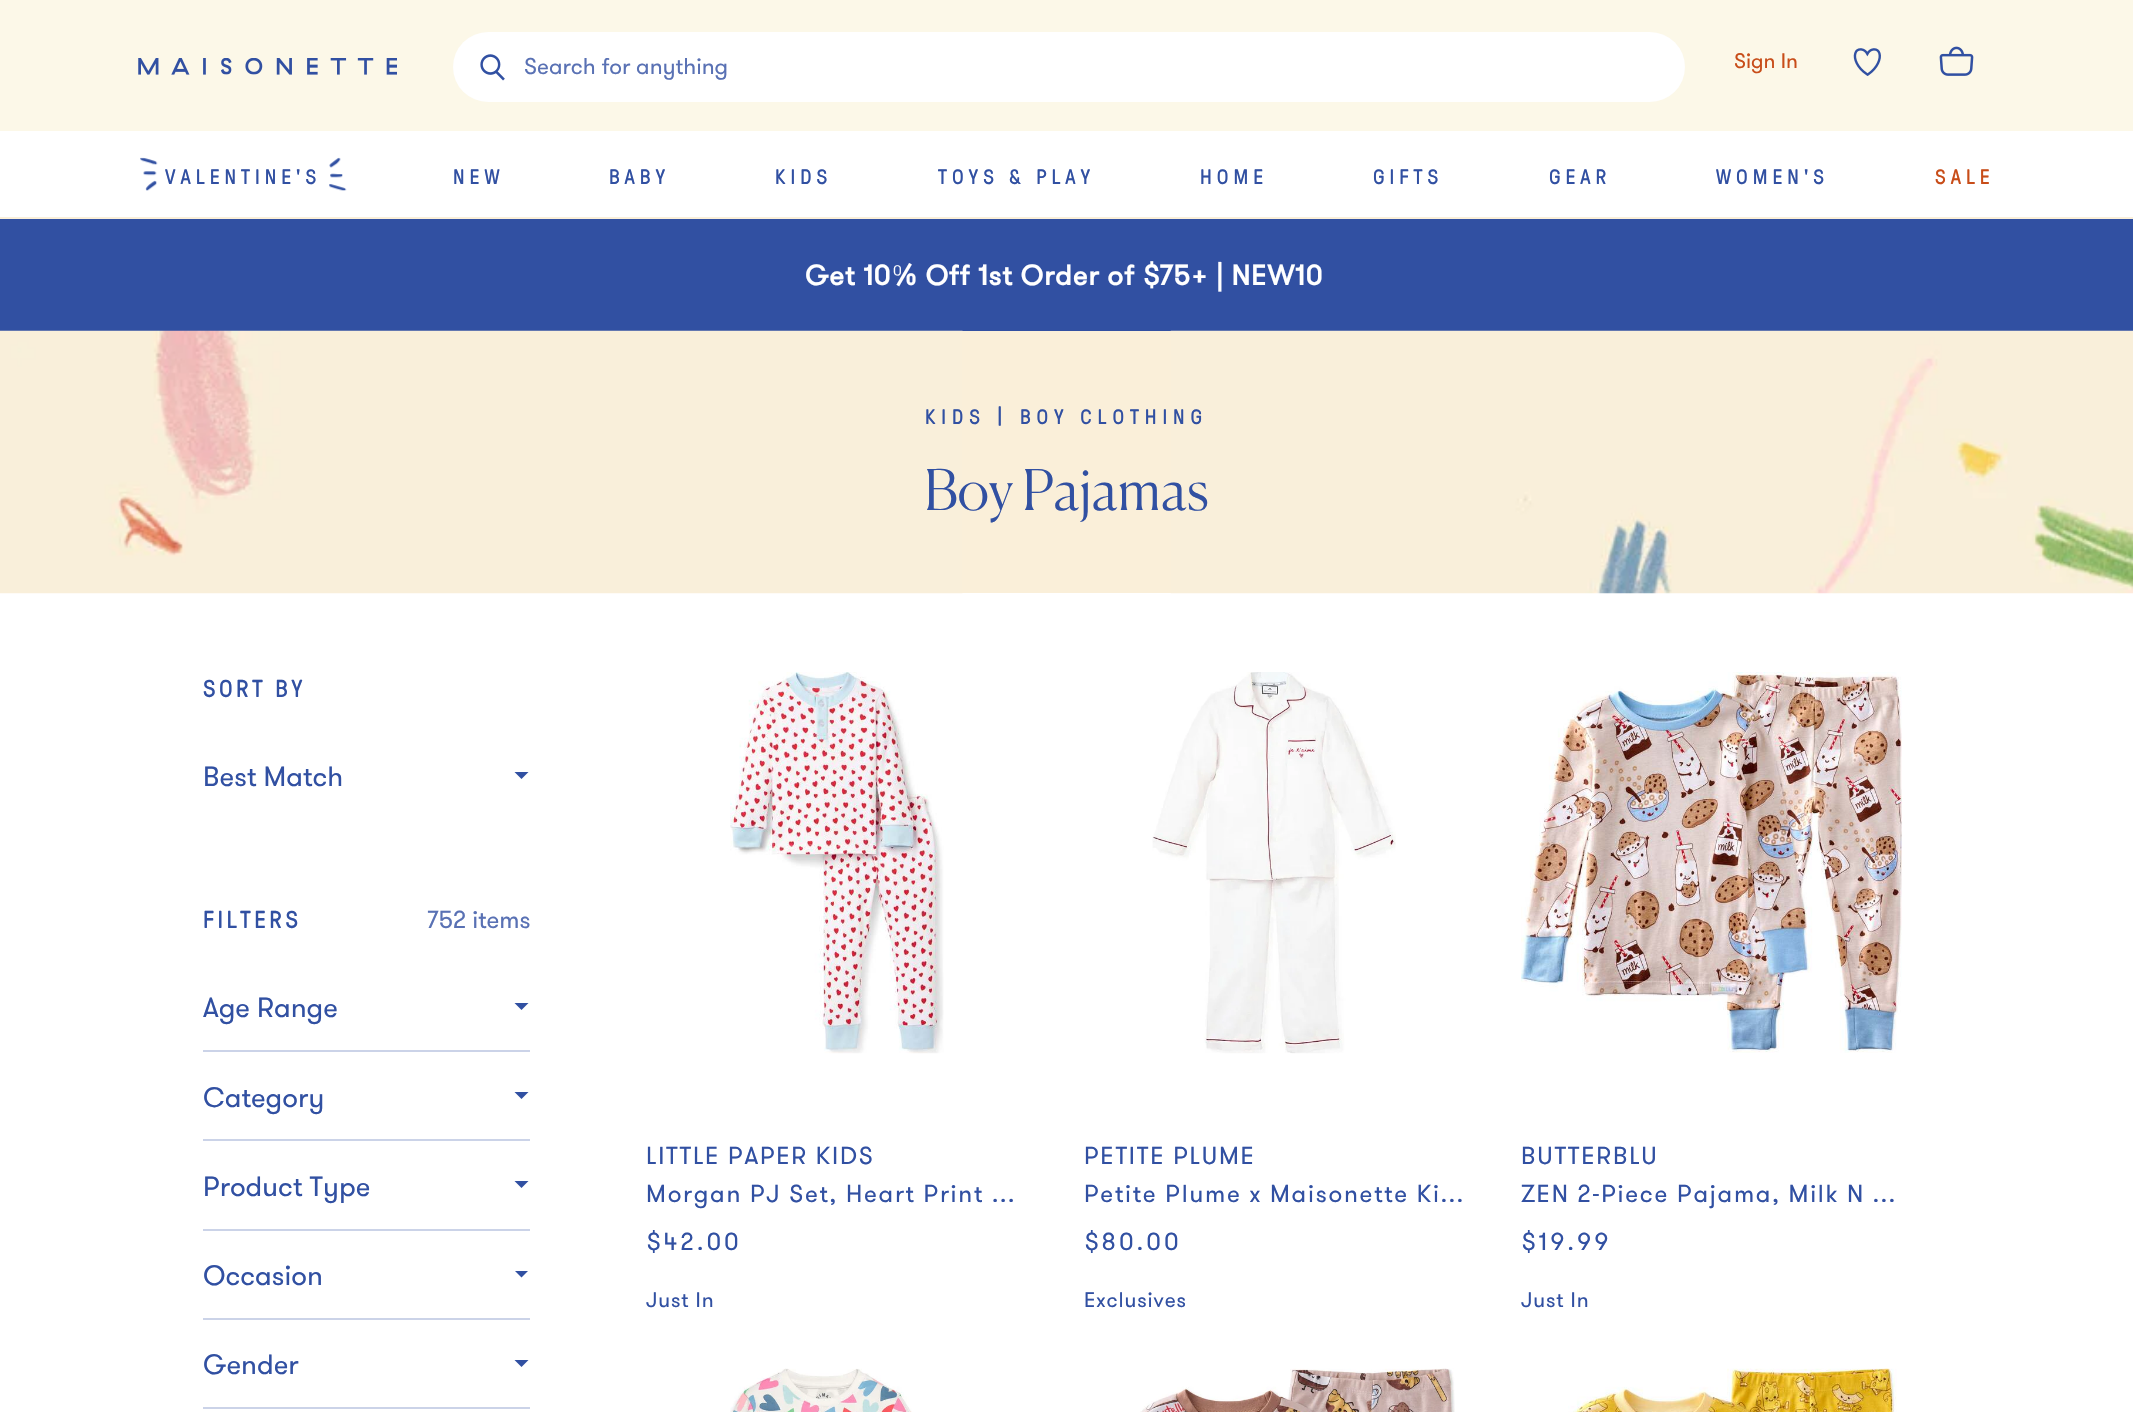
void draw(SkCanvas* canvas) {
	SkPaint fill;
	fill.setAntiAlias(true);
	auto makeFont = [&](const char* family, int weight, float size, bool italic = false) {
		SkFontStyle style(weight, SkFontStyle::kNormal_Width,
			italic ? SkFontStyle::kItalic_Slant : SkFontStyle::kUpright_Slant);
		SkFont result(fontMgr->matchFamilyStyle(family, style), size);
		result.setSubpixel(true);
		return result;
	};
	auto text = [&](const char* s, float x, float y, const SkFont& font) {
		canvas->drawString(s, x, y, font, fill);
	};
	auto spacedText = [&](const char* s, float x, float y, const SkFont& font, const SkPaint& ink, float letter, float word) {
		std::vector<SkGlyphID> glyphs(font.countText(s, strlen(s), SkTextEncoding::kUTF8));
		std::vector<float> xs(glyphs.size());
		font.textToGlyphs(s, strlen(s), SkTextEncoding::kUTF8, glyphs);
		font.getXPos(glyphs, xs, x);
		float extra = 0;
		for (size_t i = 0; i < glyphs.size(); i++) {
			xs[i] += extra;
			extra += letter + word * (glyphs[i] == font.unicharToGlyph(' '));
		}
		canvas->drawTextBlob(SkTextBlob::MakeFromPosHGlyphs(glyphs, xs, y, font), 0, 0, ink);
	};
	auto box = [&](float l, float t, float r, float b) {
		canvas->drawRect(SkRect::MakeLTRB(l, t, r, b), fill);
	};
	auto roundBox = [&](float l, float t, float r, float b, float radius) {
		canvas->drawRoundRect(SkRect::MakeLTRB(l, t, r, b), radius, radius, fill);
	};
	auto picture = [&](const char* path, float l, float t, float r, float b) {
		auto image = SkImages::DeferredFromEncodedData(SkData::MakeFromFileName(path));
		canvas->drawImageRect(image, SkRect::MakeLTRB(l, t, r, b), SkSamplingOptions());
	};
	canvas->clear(0xFFFFFFFF);
	fill.setColor(0xFFFCF8E8);
	box(0, 0, 2133, 131);
	picture("image0.png", 138, 58, 397, 75);
	fill.setColor(0xFFFFFFFF);
	roundBox(453, 32, 1685, 102, 35);
	picture("image1.png", 480, 54, 505, 81);
	picture("image2.png", 1853, 48, 1881, 76);
	picture("image3.png", 1939, 46, 1974, 76);
	fill.setColor(0xFFFAEFD9);
	box(0, 217, 2133, 219);
	picture("image4.png", 140, 157, 347, 191);
	fill.setColor(0xFF3150A2);
	box(0, 219, 2133, 331);
	fill.setColor(0xFFFAEFD9);
	box(962, 331, 1171, 593);
	picture("image5.png", 0, 330, 963, 594);
	picture("image6.png", 1170, 330, 2133, 594);
	fill.setColor(0xFF3150A2);
	canvas->drawPath(SkPathBuilder().moveTo(514.5f, 772).lineTo(521.5f, 779).lineTo(528.5f, 772).close().detach(), fill);
	fill.setColor(0xFFCBD3E8);
	box(203, 1050, 530, 1052);
	fill.setColor(0xFF3150A2);
	canvas->drawPath(SkPathBuilder().moveTo(514.5f, 1003).lineTo(521.5f, 1010).lineTo(528.5f, 1003).close().detach(), fill);
	fill.setColor(0xFFCBD3E8);
	box(203, 1139, 530, 1141);
	fill.setColor(0xFF3150A2);
	canvas->drawPath(SkPathBuilder().moveTo(514.5f, 1092).lineTo(521.5f, 1099).lineTo(528.5f, 1092).close().detach(), fill);
	fill.setColor(0xFFCBD3E8);
	box(203, 1229, 530, 1231);
	fill.setColor(0xFF3150A2);
	canvas->drawPath(SkPathBuilder().moveTo(514.5f, 1181).lineTo(521.5f, 1188).lineTo(528.5f, 1181).close().detach(), fill);
	fill.setColor(0xFFCBD3E8);
	box(203, 1318, 530, 1320);
	canvas->save();
	canvas->clipRect(SkRect::MakeLTRB(515, 1271, 529, 1278));
	fill.setColor(0xFF3150A2);
	canvas->drawPath(SkPathBuilder().moveTo(514.5f, 1270.5f).lineTo(521.5f, 1277.5f).lineTo(528.5f, 1270.5f).close().detach(), fill);
	canvas->restore();
	fill.setColor(0xFFCBD3E8);
	box(203, 1407, 530, 1409);
	fill.setColor(0xFF3150A2);
	canvas->drawPath(SkPathBuilder().moveTo(514.5f, 1360).lineTo(521.5f, 1367).lineTo(528.5f, 1360).close().detach(), fill);
	picture("image7.png", 730, 672, 944, 1054);
	picture("image8.png", 1152, 672, 1396, 1054);
	picture("image9.png", 1521, 672, 1902, 1053);
	picture("image10.png", 730, 1368, 912, 1412);
	picture("image11.png", 1140, 1368, 1455, 1412);
	picture("image12.png", 1568, 1368, 1897, 1412);
	auto font1 = makeFont("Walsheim", 400, 22.75f);
	fill.setColor(0xFF5971B4);
	text("Search for anything", 524, 74, font1);
	auto font2 = makeFont("Walsheim", 400, 21);
	fill.setColor(0xFFC84D19);
	text("Sign In", 1734, 68, font2);
	auto font3 = makeFont("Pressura", 400, 21);
	fill.setColor(0xFF3150A2);
	spacedText("VALENTINE'S", 165, 184, font3, fill, 5, 0);
	spacedText("NEW", 453, 184, font3, fill, 5, 0);
	spacedText("BABY", 609, 184, font3, fill, 5, 0);
	spacedText("KIDS", 775, 184, font3, fill, 5, 0);
	spacedText("TOYS & PLAY", 938, 184, font3, fill, 5, 0);
	spacedText("HOME", 1200, 184, font3, fill, 5, 0);
	spacedText("GIFTS", 1373, 184, font3, fill, 5, 0);
	spacedText("GEAR", 1549, 184, font3, fill, 5, 0);
	spacedText("WOMEN'S", 1716, 184, font3, fill, 5, 0);
	fill.setColor(0xFFC84D19);
	spacedText("SALE", 1935, 184, font3, fill, 5, 0);
	auto font4 = makeFont("Walsheim", 700, 28);
	fill.setColor(0xFFFFFFFF);
	spacedText("Get 10% Off 1st Order of $75+ | NEW10", 805, 285, font4, fill, 0.9f, 0);
	fill.setColor(0xFF3150A2);
	spacedText("KIDS", 925, 424, font3, fill, 5.9f, 0);
	auto font5 = makeFont("Pressura", 400, 24.5f);
	spacedText("|", 997, 424, font5, fill, 5.9f, 0);
	spacedText("BOY CLOTHING", 1020, 424, font3, fill, 5.9f, 0);
	auto font6 = makeFont("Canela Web", 300, 56);
	text("Boy Pajamas", 924, 510, font6);
	spacedText("SORT BY", 203, 697, font5, fill, 3.5f, 0);
	auto font7 = makeFont("Walsheim", 400, 28);
	text("Best Match", 203, 786, font7);
	spacedText("FILTERS", 203, 928, font5, fill, 3.5f, 0);
	auto font8 = makeFont("Walsheim", 400, 24.5f);
	fill.setColor(0xFF5971B4);
	text("752 items", 427, 928, font8);
	fill.setColor(0xFF3150A2);
	text("Age Range", 203, 1017, font7);
	text("Category", 203, 1107, font7);
	text("Product Type", 203, 1196, font7);
	text("Occasion", 203, 1285, font7);
	text("Gender", 203, 1374, font7);
	spacedText("LITTLE PAPER KIDS", 646, 1164, font8, fill, 1.75f, 0);
	spacedText("Morgan PJ Set, Heart Print ...", 646, 1202, font8, fill, 1.75f, 0);
	spacedText("$42.00", 646, 1250, font8, fill, 3.5f, 0);
	spacedText("Just In", 646, 1307, font2, fill, 0.9f, 0);
	spacedText("PETITE PLUME", 1084, 1164, font8, fill, 1.75f, 0);
	spacedText("Petite Plume x Maisonette Ki...", 1084, 1202, font8, fill, 1.75f, 0);
	spacedText("$80.00", 1084, 1250, font8, fill, 3.5f, 0);
	spacedText("Exclusives", 1084, 1307, font2, fill, 0.9f, 0);
	spacedText("BUTTERBLU", 1521, 1164, font8, fill, 1.75f, 0);
	spacedText("ZEN 2-Piece Pajama, Milk N ...", 1521, 1202, font8, fill, 1.75f, 0);
	spacedText("$19.99", 1521, 1250, font8, fill, 3.5f, 0);
	spacedText("Just In", 1521, 1307, font2, fill, 0.9f, 0);
}
